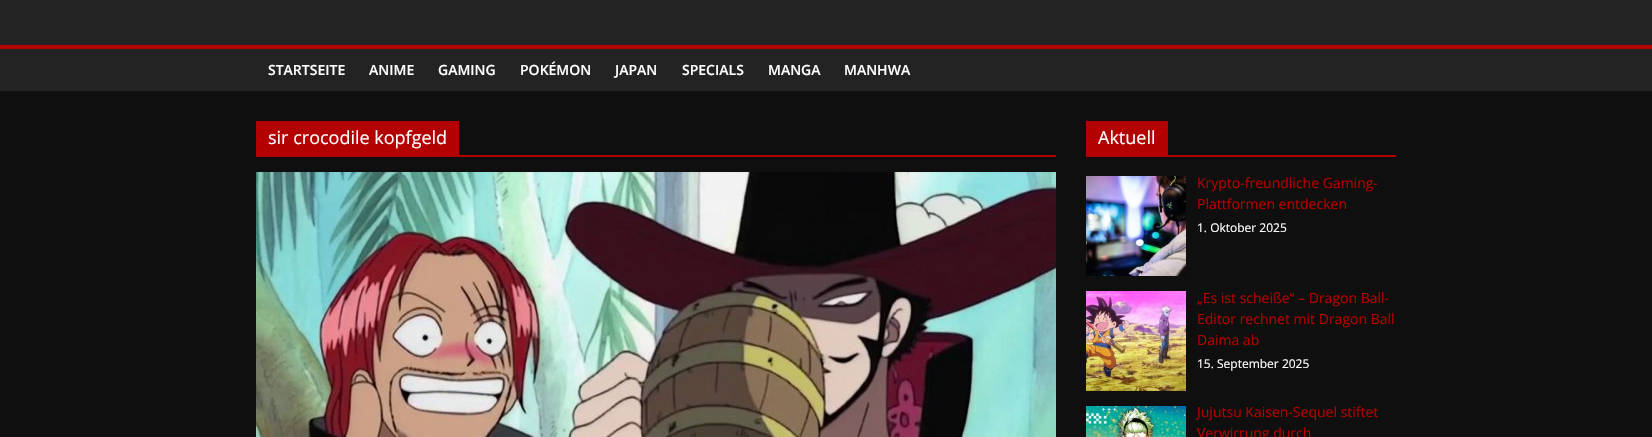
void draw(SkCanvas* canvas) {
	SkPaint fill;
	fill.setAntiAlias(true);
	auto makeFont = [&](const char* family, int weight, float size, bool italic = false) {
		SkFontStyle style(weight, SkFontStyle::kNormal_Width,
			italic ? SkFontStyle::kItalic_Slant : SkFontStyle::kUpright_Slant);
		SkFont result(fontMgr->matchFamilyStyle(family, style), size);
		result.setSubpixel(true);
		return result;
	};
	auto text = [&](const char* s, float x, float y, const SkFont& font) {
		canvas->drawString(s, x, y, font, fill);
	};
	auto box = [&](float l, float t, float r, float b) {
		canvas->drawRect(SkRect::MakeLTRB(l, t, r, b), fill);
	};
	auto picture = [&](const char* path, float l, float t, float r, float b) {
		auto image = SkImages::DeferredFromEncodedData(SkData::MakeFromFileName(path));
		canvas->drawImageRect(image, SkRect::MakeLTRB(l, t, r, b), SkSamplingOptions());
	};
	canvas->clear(0xFF0F0F0F);
	fill.setColor(0xFF232323);
	box(0, 0, 1652, 91);
	fill.setColor(0xFFB30000);
	box(0, 45, 1652, 49);
	box(256, 155, 1056, 157);
	box(256, 121, 459, 155);
	picture("image0.png", 256, 172, 1056, 437);
	box(1086, 155, 1396, 157);
	box(1086, 121, 1168, 155);
	picture("image1.png", 1086, 176, 1186, 276);
	picture("image2.png", 1086, 291, 1186, 391);
	picture("image3.png", 1086, 406, 1186, 437);
	auto font1 = makeFont("Open Sans", 600, 14);
	fill.setColor(0xFFFFFFFF);
	text("STARTSEITE", 268, 75, font1);
	text("ANIME", 369, 75, font1);
	text("GAMING", 438, 75, font1);
	text("POKÉMON", 520, 75, font1);
	text("JAPAN", 615, 75, font1);
	text("SPECIALS", 682, 75, font1);
	text("MANGA", 768, 75, font1);
	text("MANHWA", 844, 75, font1);
	auto font2 = makeFont("Open Sans", 400, 18);
	text("sir crocodile kopfgeld", 268, 144, font2);
	text("Aktuell", 1098, 144, font2);
	auto font3 = makeFont("Open Sans", 400, 14);
	fill.setColor(0xFFB30000);
	text("Krypto-freundliche Gaming-", 1197, 188, font3);
	text("Plattformen entdecken", 1197, 209, font3);
	auto font4 = makeFont("Open Sans", 400, 12);
	fill.setColor(0xFFFFFFFF);
	text("1. Oktober 2025", 1197, 232, font4);
	fill.setColor(0xFFB30000);
	text("„Es ist scheiße“ – Dragon Ball-", 1197, 303, font3);
	text("Editor rechnet mit Dragon Ball", 1197, 324, font3);
	text("Daima ab", 1197, 345, font3);
	fill.setColor(0xFFFFFFFF);
	text("15. September 2025", 1197, 368, font4);
	fill.setColor(0xFFB30000);
	text("Jujutsu Kaisen-Sequel stiftet", 1197, 417, font3);
	text("Verwirrung durch", 1197, 438, font3);
}
